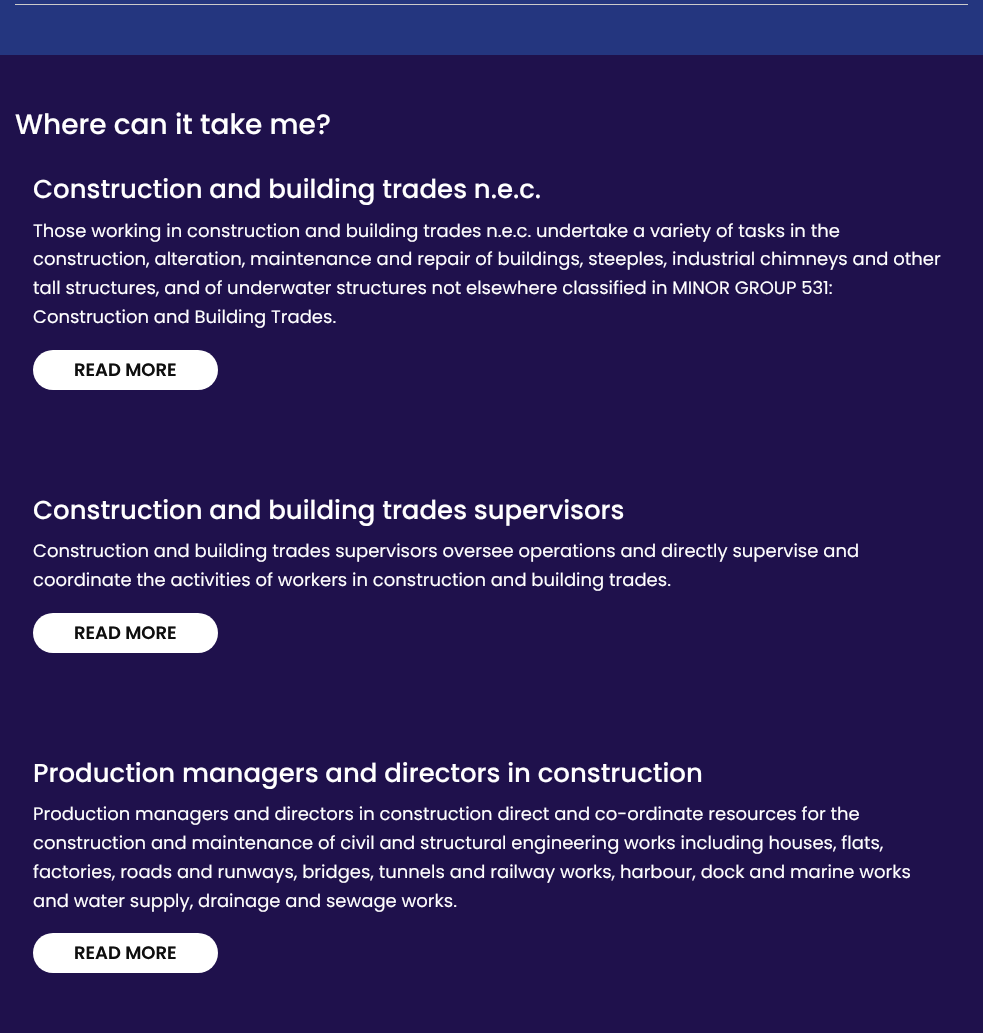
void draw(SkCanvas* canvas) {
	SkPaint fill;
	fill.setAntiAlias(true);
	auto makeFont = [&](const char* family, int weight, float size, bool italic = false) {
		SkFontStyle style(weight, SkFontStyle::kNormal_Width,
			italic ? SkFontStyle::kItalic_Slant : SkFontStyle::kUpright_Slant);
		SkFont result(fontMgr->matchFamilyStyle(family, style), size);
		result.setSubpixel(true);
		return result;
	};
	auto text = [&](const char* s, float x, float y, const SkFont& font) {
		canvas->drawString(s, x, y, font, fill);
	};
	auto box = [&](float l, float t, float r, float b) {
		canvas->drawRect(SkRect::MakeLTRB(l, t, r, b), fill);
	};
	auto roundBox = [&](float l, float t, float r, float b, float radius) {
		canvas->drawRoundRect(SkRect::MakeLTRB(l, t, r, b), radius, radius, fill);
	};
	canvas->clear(0xFF24367F);
	fill.setColor(0xFFCBCBCB);
	box(15, 4, 968, 5);
	fill.setColor(0xFF1F114C);
	box(0, 55, 983, 1033);
	fill.setColor(0xFFFFFFFF);
	roundBox(33, 350, 218, 390, 20);
	roundBox(33, 613, 218, 653, 20);
	roundBox(33, 933, 218, 973, 20);
	auto font1 = makeFont("Poppins", 500, 28);
	text("Where can it take me?", 15, 134, font1);
	auto font2 = makeFont("Poppins", 500, 26);
	text("Construction and building trades n.e.c.", 33, 198, font2);
	auto font3 = makeFont("Poppins", 400, 18);
	text("Those working in construction and building trades n.e.c. undertake a variety of tasks in the", 33, 237, font3);
	text("construction, alteration, maintenance and repair of buildings, steeples, industrial chimneys and other", 33, 265, font3);
	text("tall structures, and of underwater structures not elsewhere classified in MINOR GROUP 531:", 33, 294, font3);
	text("Construction and Building Trades.", 33, 323, font3);
	auto font4 = makeFont("Poppins", 600, 18);
	fill.setColor(0xFF0F0F0F);
	text("READ MORE", 74, 376, font4);
	fill.setColor(0xFFFFFFFF);
	text("Construction and building trades supervisors", 33, 519, font2);
	text("Construction and building trades supervisors oversee operations and directly supervise and", 33, 557, font3);
	text("coordinate the activities of workers in construction and building trades.", 33, 586, font3);
	fill.setColor(0xFF0F0F0F);
	text("READ MORE", 74, 639, font4);
	fill.setColor(0xFFFFFFFF);
	text("Production managers and directors in construction", 33, 782, font2);
	text("Production managers and directors in construction direct and co-ordinate resources for the", 33, 820, font3);
	text("construction and maintenance of civil and structural engineering works including houses, flats,", 33, 849, font3);
	text("factories, roads and runways, bridges, tunnels and railway works, harbour, dock and marine works", 33, 878, font3);
	text("and water supply, drainage and sewage works.", 33, 907, font3);
	fill.setColor(0xFF0F0F0F);
	text("READ MORE", 74, 959, font4);
}
